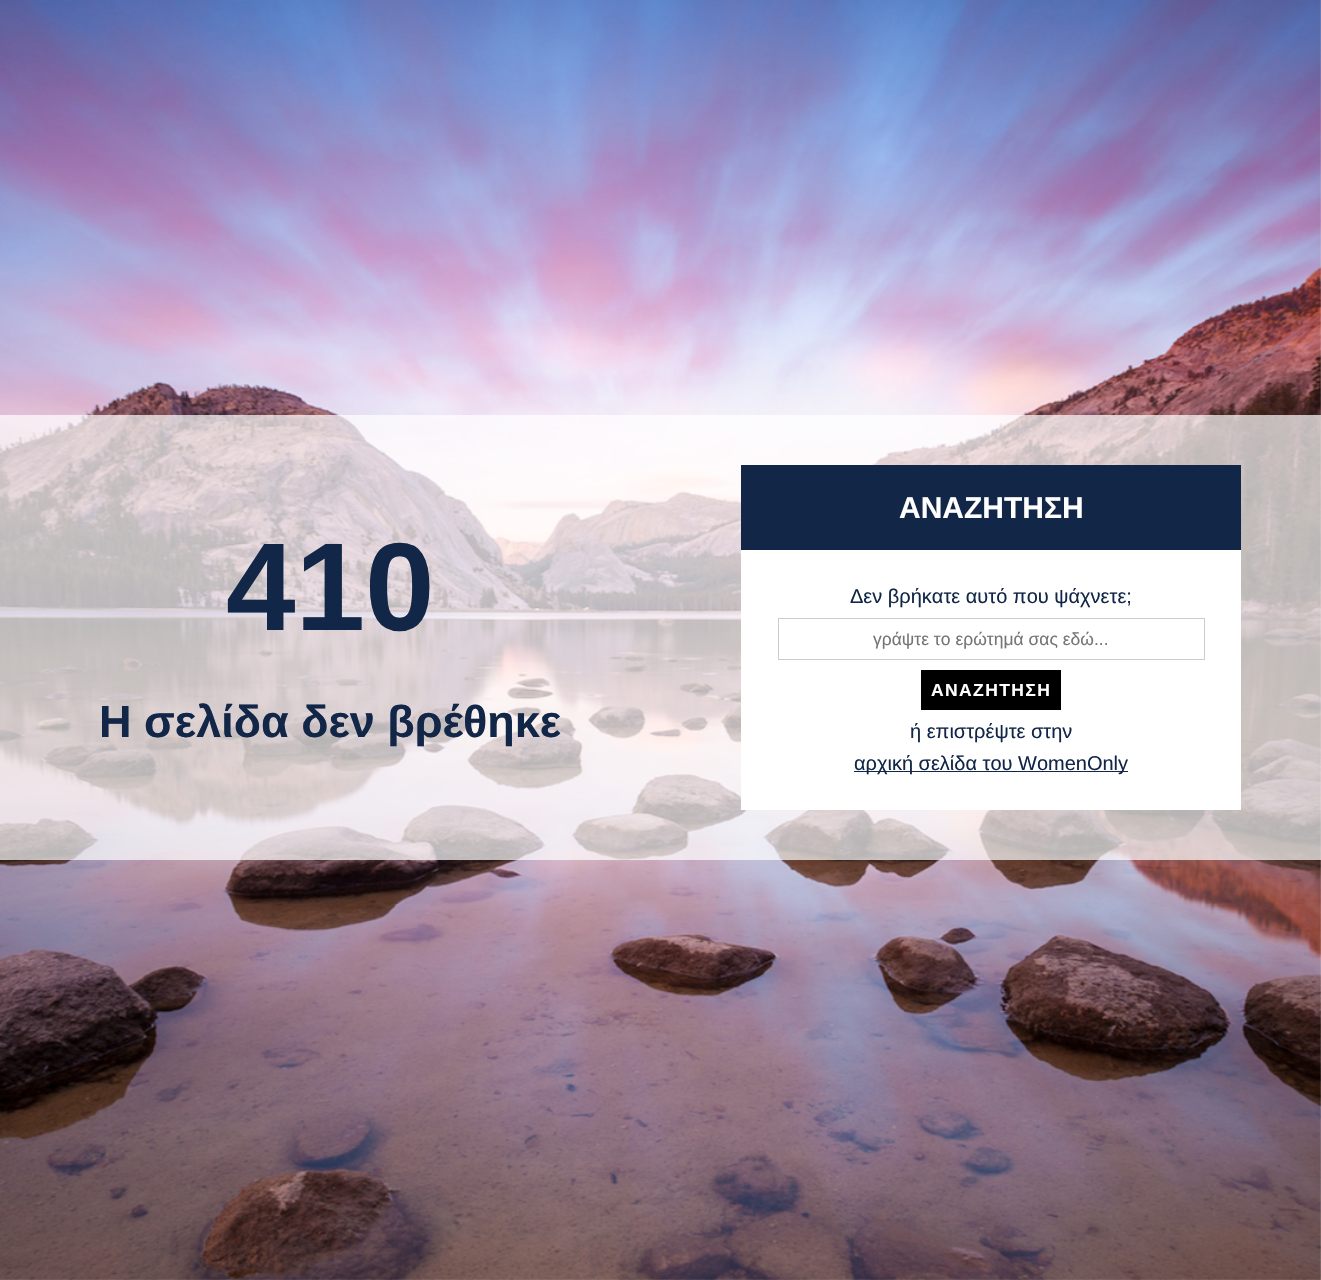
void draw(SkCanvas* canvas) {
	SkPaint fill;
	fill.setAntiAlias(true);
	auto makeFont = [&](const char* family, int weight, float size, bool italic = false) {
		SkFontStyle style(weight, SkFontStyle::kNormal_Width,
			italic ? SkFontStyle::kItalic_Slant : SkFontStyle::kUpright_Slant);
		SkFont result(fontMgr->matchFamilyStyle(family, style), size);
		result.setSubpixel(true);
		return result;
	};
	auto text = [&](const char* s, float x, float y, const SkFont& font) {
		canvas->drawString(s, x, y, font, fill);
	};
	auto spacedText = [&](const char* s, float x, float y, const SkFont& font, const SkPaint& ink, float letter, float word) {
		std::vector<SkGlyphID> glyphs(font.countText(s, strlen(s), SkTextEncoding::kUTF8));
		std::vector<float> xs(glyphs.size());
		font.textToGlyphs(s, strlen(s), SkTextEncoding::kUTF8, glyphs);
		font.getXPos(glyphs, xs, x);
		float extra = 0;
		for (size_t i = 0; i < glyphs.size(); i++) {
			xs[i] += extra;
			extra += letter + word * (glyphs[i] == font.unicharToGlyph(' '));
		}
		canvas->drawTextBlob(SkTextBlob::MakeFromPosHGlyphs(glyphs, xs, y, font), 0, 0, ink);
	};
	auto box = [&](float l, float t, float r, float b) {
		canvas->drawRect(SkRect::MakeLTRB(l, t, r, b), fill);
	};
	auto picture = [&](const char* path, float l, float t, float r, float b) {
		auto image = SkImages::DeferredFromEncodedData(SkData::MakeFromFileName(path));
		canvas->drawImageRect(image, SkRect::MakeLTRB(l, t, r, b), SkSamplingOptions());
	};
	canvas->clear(0xFFFFFFFF);
	picture("image0.png", 0, 0, 1321, 1280);
	fill.setColor(0xB3FFFFFF);
	box(0, 415, 1321, 860);
	fill.setColor(0xFFFFFFFF);
	box(741, 550, 1241, 810);
	fill.setColor(0xFF122747);
	box(741, 465, 1241, 550);
	fill.setStyle(SkPaint::kStroke_Style);
	fill.setStrokeWidth(1);
	fill.setColor(0xFFCCCCCC);
	canvas->drawRect(SkRect::MakeLTRB(778.5f, 618.5f, 1204.5f, 659.5f), fill);
	fill.setStyle(SkPaint::kFill_Style);
	fill.setColor(0xFF000000);
	box(921, 670, 1061, 710);
	fill.setColor(0xFF122747);
	box(854, 771, 1128, 772);
	auto font1 = makeFont("Liberation Sans", 700, 125);
	text("410", 226, 630, font1);
	auto font2 = makeFont("Liberation Sans", 700, 45);
	text("Η σελίδα δεν βρέθηκε", 99, 737, font2);
	auto font3 = makeFont("Liberation Sans", 700, 30);
	fill.setColor(0xFFFFFFFF);
	text("ΑΝΑΖΗΤΗΣΗ", 899, 518, font3);
	auto font4 = makeFont("Liberation Sans", 400, 20);
	fill.setColor(0xFF122747);
	text("Δεν βρήκατε αυτό που ψάχνετε;", 850, 603, font4);
	auto font5 = makeFont("Liberation Sans", 400, 17.5f);
	fill.setColor(0xFF757575);
	text("γράψτε το ερώτημά σας εδώ...", 873, 645, font5);
	auto font6 = makeFont("Liberation Sans", 700, 17.5f);
	fill.setColor(0xFFFFFFFF);
	spacedText("ΑΝΑΖΗΤΗΣΗ", 931, 696, font6, fill, 1.4f, 0);
	fill.setColor(0xFF122747);
	text("ή επιστρέψτε στην", 910, 738, font4);
	text("αρχική σελίδα του WomenOnly", 854, 770, font4);
}
